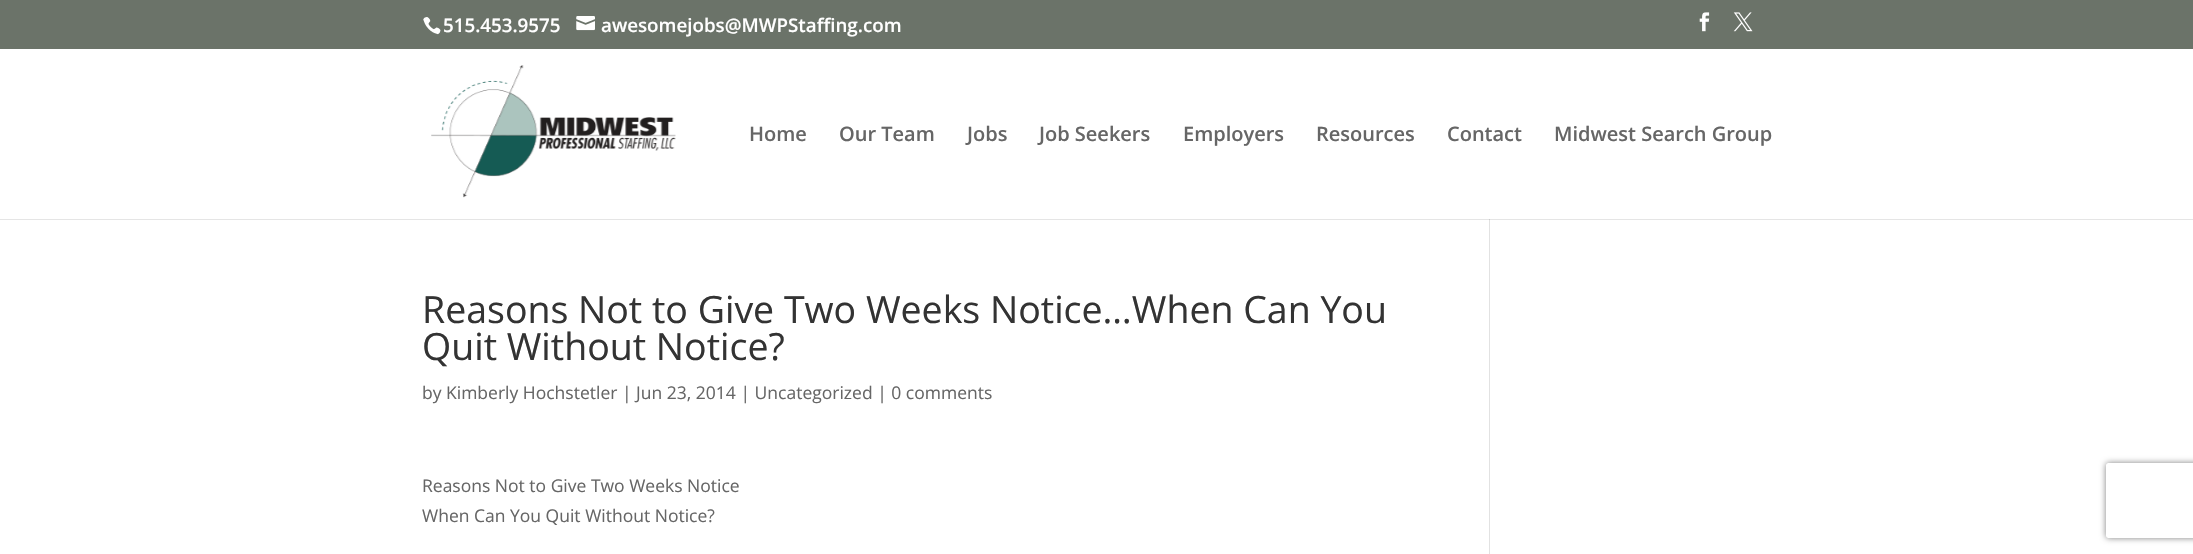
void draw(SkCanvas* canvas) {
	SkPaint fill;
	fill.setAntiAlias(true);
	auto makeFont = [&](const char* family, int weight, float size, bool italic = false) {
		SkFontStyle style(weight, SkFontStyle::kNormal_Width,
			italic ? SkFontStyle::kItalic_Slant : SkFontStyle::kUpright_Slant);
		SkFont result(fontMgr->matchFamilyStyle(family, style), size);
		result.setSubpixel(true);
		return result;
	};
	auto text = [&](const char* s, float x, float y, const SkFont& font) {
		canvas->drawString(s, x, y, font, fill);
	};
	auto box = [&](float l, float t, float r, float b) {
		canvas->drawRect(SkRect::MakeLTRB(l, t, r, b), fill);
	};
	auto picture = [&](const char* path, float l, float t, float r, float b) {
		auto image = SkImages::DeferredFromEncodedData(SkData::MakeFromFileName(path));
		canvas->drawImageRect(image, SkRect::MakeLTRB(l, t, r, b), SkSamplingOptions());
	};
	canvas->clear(0xFFFFFFFF);
	fill.setColor(0xFF6B7369);
	box(0, 0, 2193, 49);
	picture("image0.png", 423, 17, 441, 35);
	picture("image1.png", 576, 16, 595, 31);
	picture("image2.png", 1699, 12, 1710, 32);
	picture("image3.png", 1733, 12, 1753, 32);
	fill.setColor(0xFFE2E2E2);
	box(1489, 218, 1490, 554);
	fill.setColor(0x1A000000);
	canvas->drawPath(SkPathBuilder().moveTo(0, 219).lineTo(0, 220).lineTo(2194, 220).lineTo(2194, 50).lineTo(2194, 219).close().detach(), fill);
	fill.setColor(0xFFFFFFFF);
	box(1489, 218, 1490, 219);
	picture("image4.png", 431, 65, 676, 198);
	canvas->save();
	canvas->clipPath(SkPathBuilder(SkPathFillType::kEvenOdd).moveTo(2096, 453).lineTo(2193, 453).lineTo(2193, 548).lineTo(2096, 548).close().moveTo(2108.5f, 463).lineTo(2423.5f, 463).cubicTo(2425, 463, 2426, 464, 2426, 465.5f).lineTo(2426, 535.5f).cubicTo(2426, 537, 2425, 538, 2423.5f, 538).lineTo(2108.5f, 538).cubicTo(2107, 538, 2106, 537, 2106, 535.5f).lineTo(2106, 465.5f).cubicTo(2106, 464, 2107, 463, 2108.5f, 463).close().detach(), true);
	fill.setColor(0xFF808080);
	fill.setMaskFilter(SkMaskFilter::MakeBlur(kNormal_SkBlurStyle, 3));
	canvas->drawRoundRect(SkRect::MakeLTRB(2106, 463, 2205, 538), 2.5f, 2.5f, fill);
	fill.setMaskFilter(nullptr);
	canvas->restore();
	auto font1 = makeFont("Open Sans", 600, 18.75f);
	fill.setColor(0xFFFFFFFF);
	text("515.453.9575", 443, 32, font1);
	text("awesomejobs@MWPStaffing.com", 601, 32, font1);
	auto font2 = makeFont("Open Sans", 600, 20);
	fill.setColor(0xFF666666);
	text("Home", 749, 141, font2);
	text("Our Team", 839, 141, font2);
	text("Jobs", 967, 141, font2);
	text("Job Seekers", 1039, 141, font2);
	text("Employers", 1183, 141, font2);
	text("Resources", 1316, 141, font2);
	text("Contact", 1447, 141, font2);
	text("Midwest Search Group", 1554, 141, font2);
	auto font3 = makeFont("Open Sans", 400, 37.5f);
	fill.setColor(0xFF333333);
	text("Reasons Not to Give Two Weeks Notice…When Can You", 422, 323, font3);
	text("Quit Without Notice?", 422, 360, font3);
	auto font4 = makeFont("Open Sans", 400, 17.5f);
	fill.setColor(0xFF666666);
	text("by Kimberly Hochstetler | Jun 23, 2014 | Uncategorized | 0 comments", 422, 399, font4);
	text("Reasons Not to Give Two Weeks Notice", 422, 492, font4);
	text("When Can You Quit Without Notice?", 422, 522, font4);
}
